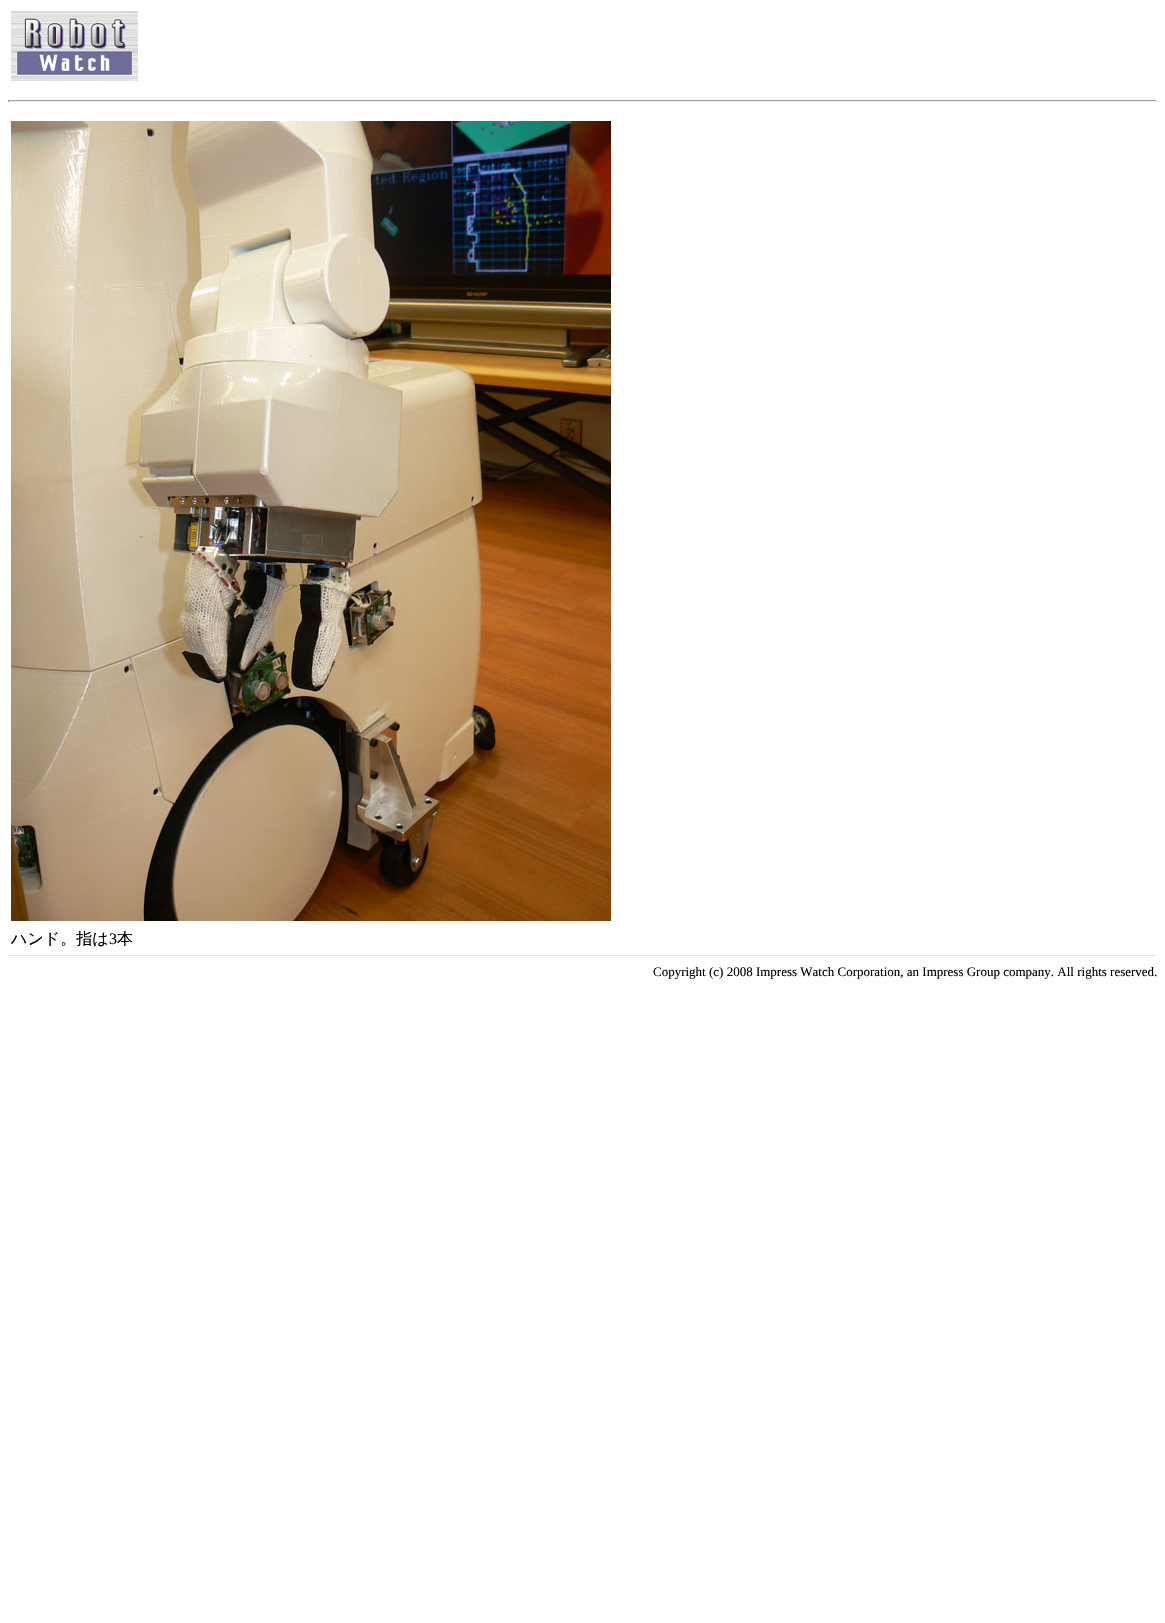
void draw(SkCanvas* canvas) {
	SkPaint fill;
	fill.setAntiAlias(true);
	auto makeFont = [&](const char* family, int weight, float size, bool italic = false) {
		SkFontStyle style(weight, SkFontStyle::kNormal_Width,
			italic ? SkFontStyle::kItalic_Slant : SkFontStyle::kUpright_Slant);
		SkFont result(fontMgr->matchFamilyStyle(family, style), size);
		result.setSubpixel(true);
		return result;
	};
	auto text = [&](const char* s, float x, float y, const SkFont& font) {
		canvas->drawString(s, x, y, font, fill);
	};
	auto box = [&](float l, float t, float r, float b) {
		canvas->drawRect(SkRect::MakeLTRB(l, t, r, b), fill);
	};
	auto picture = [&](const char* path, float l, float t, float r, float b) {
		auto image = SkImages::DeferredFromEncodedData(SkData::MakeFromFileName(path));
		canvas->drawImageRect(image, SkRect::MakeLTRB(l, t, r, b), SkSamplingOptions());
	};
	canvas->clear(0xFFFFFFFF);
	picture("image0.png", 11, 11, 138, 81);
	fill.setColor(0xFF9F9F9F);
	box(8, 100, 1157, 101);
	fill.setColor(0xFFEEEEEE);
	box(1156, 100, 1157, 102);
	box(8, 101, 1157, 102);
	fill.setColor(0xFF9F9F9F);
	box(8, 100, 9, 102);
	picture("image1.png", 11, 121, 611, 921);
	fill.setColor(0xFFE3E3E3);
	box(8, 955, 1157, 956);
	auto font1 = makeFont("WenQuanYi Zen Hei", 500, 16);
	fill.setColor(0xFF000000);
	text("ハンド。指は", 11, 944, font1);
	auto font2 = makeFont("Liberation Serif", 400, 16);
	text("3", 109, 944, font2);
	text("本", 117, 944, font1);
	auto font3 = makeFont("Liberation Serif", 400, 13);
	text("Copyright (c) 2008 Impress Watch Corporation, an Impress Group company. All rights reserved.", 653, 976, font3);
}
